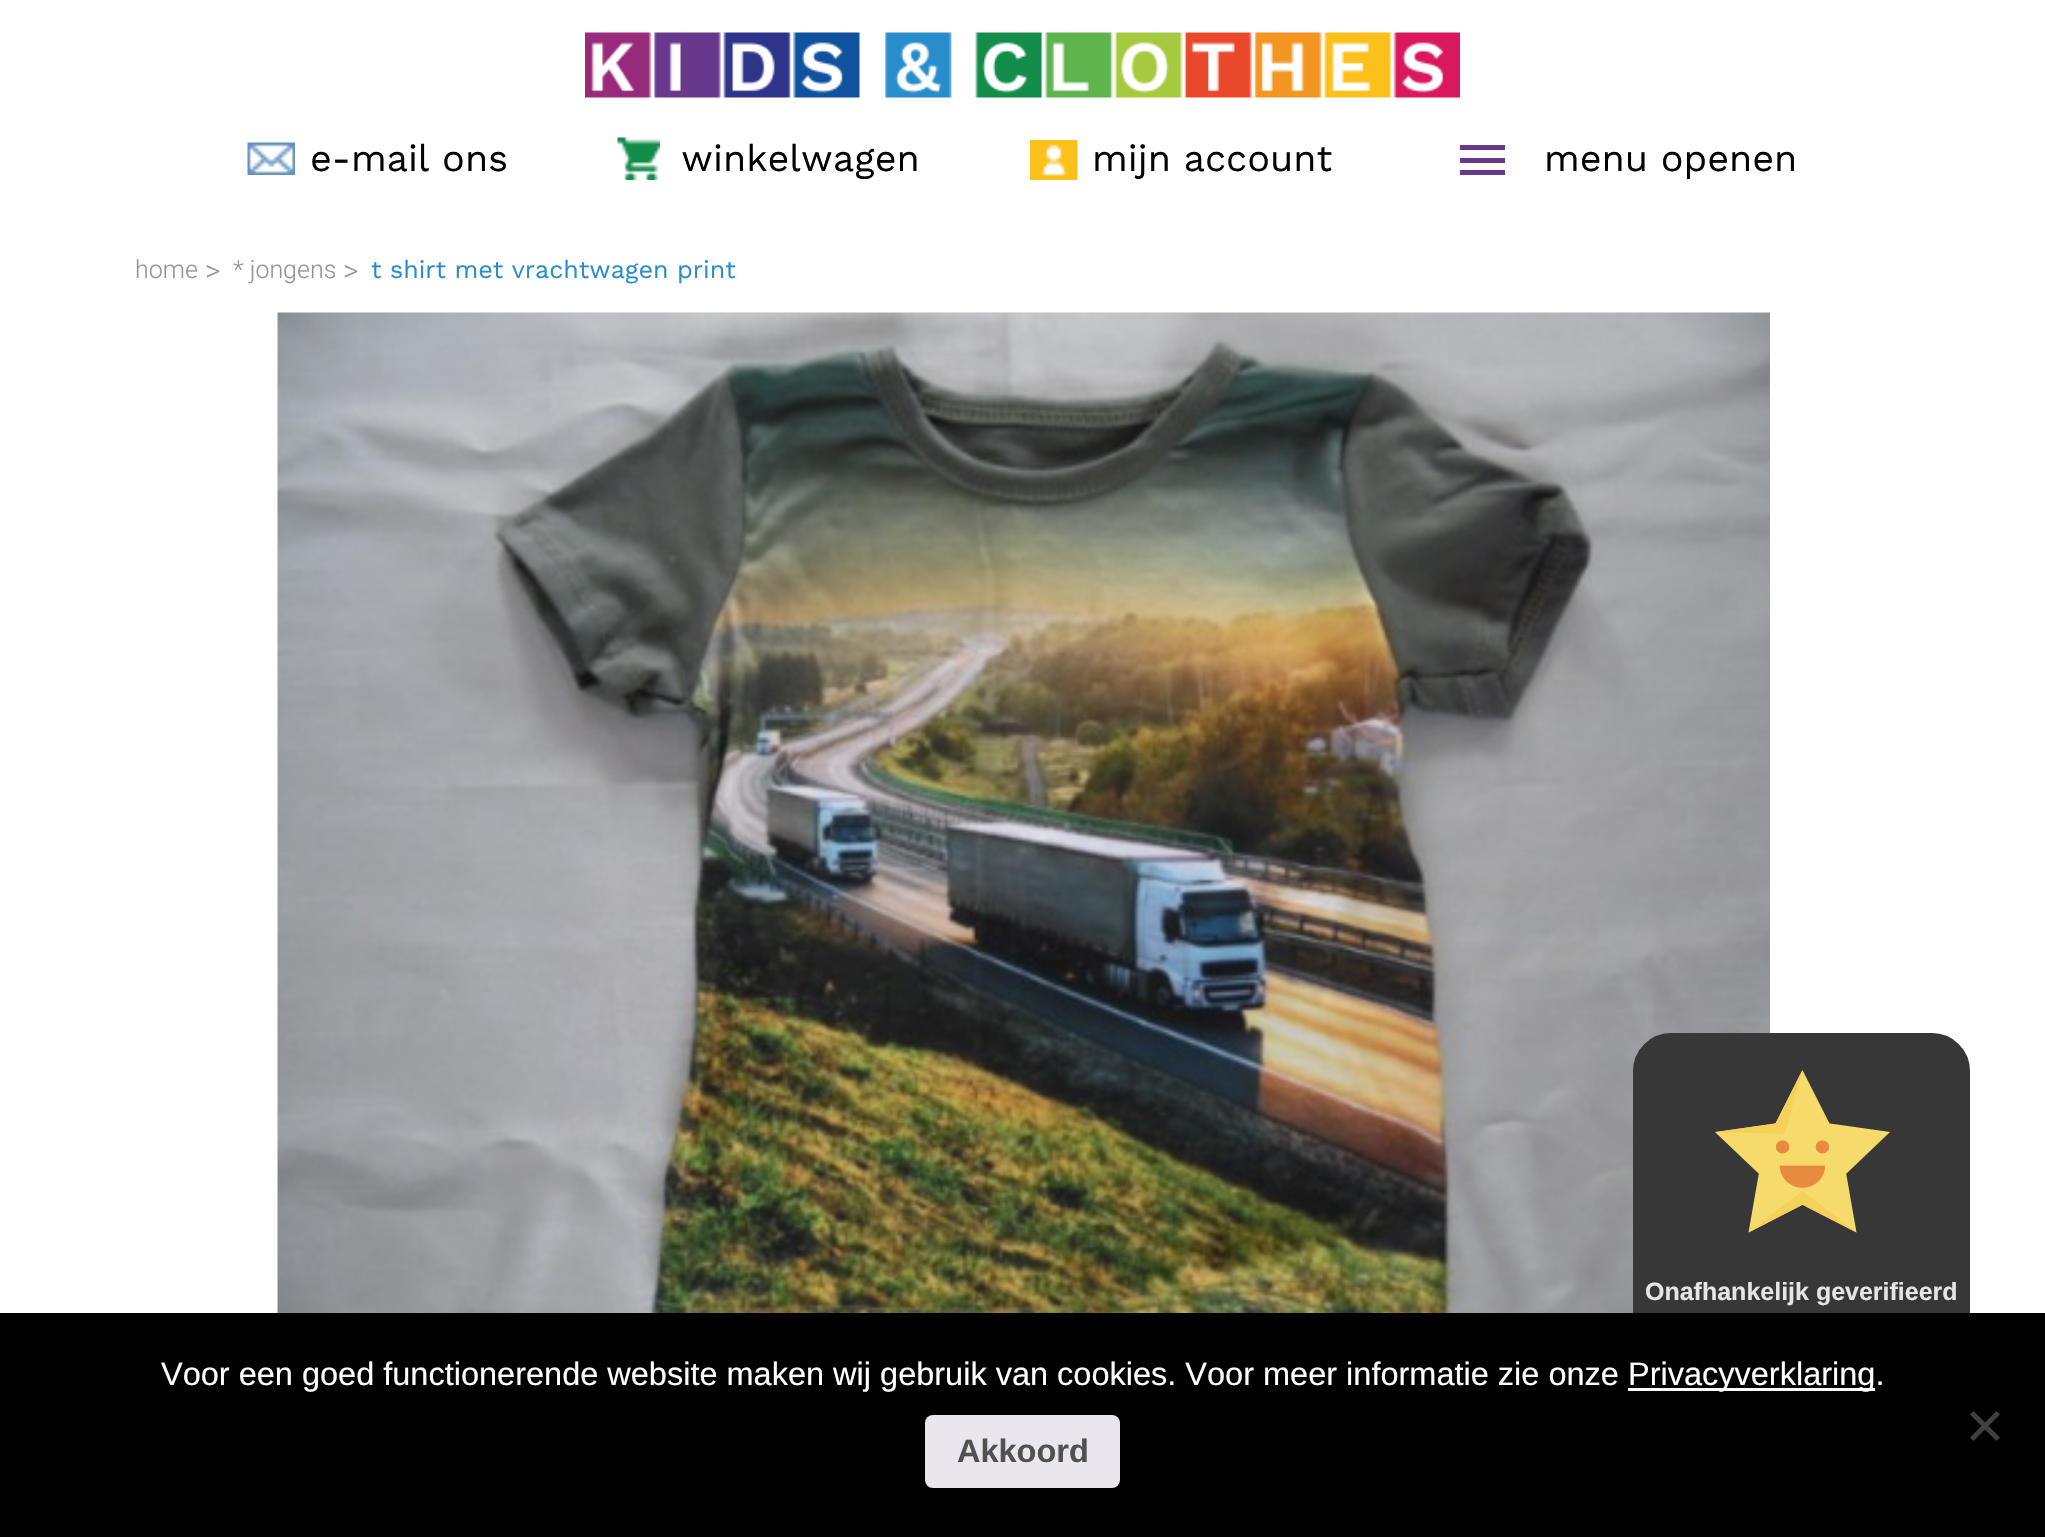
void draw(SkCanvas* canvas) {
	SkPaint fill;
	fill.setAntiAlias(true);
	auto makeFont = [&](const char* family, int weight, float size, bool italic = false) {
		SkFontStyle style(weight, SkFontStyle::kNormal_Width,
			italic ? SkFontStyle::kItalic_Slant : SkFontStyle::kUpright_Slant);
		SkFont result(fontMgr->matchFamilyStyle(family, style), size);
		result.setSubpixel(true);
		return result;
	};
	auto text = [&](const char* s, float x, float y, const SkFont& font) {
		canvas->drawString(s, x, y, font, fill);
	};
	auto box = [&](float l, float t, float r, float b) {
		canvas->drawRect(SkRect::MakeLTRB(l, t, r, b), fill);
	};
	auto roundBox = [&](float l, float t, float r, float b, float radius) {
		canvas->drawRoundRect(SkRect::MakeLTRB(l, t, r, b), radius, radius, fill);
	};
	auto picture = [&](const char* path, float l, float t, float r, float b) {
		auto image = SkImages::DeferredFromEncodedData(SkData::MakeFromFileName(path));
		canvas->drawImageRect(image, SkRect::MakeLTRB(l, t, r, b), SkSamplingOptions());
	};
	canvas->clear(0xFFFFFFFF);
	picture("image0.png", 585, 32, 1460, 98);
	picture("image1.png", 247, 142, 295, 175);
	picture("image2.png", 617, 137, 660, 180);
	picture("image3.png", 1030, 140, 1078, 180);
	fill.setColor(0xFF68388D);
	box(1460, 145, 1505, 150);
	box(1460, 158, 1505, 163);
	box(1460, 170, 1505, 175);
	picture("image4.png", 277, 312, 1770, 1313);
	fill.setStyle(SkPaint::kStroke_Style);
	fill.setStrokeWidth(3);
	fill.setColor(0xFF373737);
	canvas->drawRoundRect(SkRect::MakeLTRB(1634.5f, 1034.5f, 1968.5f, 1461.5f), 36.5f, 36.5f, fill);
	fill.setStyle(SkPaint::kFill_Style);
	canvas->drawPath(SkPathBuilder().moveTo(1670, 1035).lineTo(1933, 1035).cubicTo(1952.5f, 1035, 1968, 1050.5f, 1968, 1070).lineTo(1968, 1323).lineTo(1635, 1323).lineTo(1635, 1070).cubicTo(1635, 1050.5f, 1650.5f, 1035, 1670, 1035).close().detach(), fill);
	picture("image5.png", 1715, 1070, 1890, 1233);
	fill.setColor(0xFF000000);
	box(0, 1313, 2045, 1537);
	fill.setColor(0xFFFFFFFF);
	box(1628, 1388, 1875, 1391);
	fill.setColor(0xFF404040);
	canvas->drawPath(SkPathBuilder().moveTo(1996.5f, 1411).lineTo(2000, 1414.5f).lineTo(1973.5f, 1441).lineTo(1970, 1437.5f).close().detach(), fill);
	canvas->drawPath(SkPathBuilder().moveTo(1970, 1414.5f).lineTo(1973.5f, 1411).lineTo(2000, 1437.5f).lineTo(1996.5f, 1441).close().detach(), fill);
	fill.setColor(0xFFE9E6ED);
	roundBox(925, 1415, 1120, 1488, 8);
	auto font1 = makeFont("Work Sans", 400, 37.5f);
	fill.setColor(0xFF020303);
	text("e-mail ons", 310, 171, font1);
	text("winkelwagen", 681, 171, font1);
	text("mijn account", 1092, 171, font1);
	text("menu openen", 1544, 171, font1);
	auto font2 = makeFont("Roboto", 300, 25);
	fill.setColor(0xFF939393);
	text("home", 135, 278, font2);
	auto font3 = makeFont("Roboto", 300, 30);
	text(">", 205, 281, font3);
	text("* jongens", 233, 278, font2);
	text(">", 343, 281, font3);
	auto font4 = makeFont("Work Sans", 400, 25);
	fill.setColor(0xFF298DCC);
	text("t shirt met vrachtwagen print", 371, 278, font4);
	auto font5 = makeFont("Liberation Sans", 700, 25);
	fill.setColor(0xFFE5E5E5);
	text("Onafhankelijk geverifieerd", 1645, 1300, font5);
	auto font6 = makeFont("Liberation Sans", 400, 32.5f);
	fill.setColor(0xFFFFFFFF);
	text("Voor een goed functionerende website maken wij gebruik van cookies. Voor meer informatie zie onze", 161, 1385, font6);
	text("Privacyverklaring.", 1628, 1385, font6);
	auto font7 = makeFont("Liberation Sans", 700, 32.5f);
	fill.setColor(0xFF515151);
	text("Akkoord", 957, 1462, font7);
}
